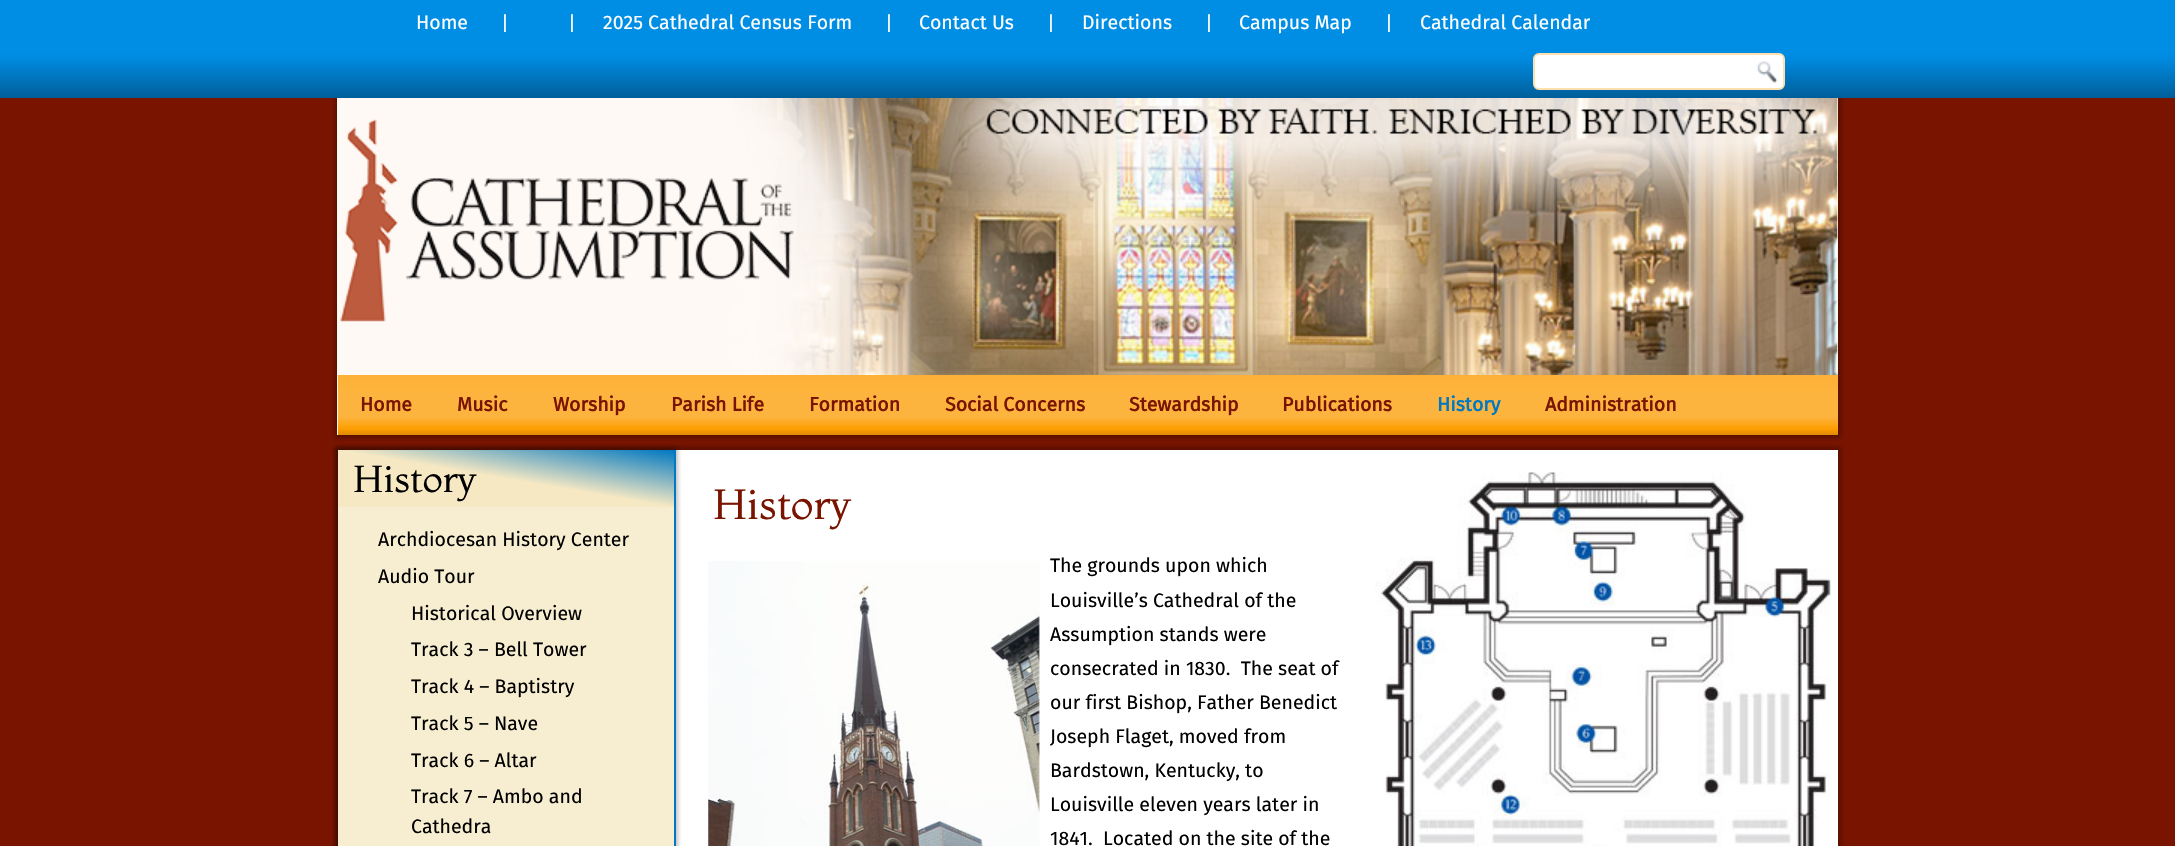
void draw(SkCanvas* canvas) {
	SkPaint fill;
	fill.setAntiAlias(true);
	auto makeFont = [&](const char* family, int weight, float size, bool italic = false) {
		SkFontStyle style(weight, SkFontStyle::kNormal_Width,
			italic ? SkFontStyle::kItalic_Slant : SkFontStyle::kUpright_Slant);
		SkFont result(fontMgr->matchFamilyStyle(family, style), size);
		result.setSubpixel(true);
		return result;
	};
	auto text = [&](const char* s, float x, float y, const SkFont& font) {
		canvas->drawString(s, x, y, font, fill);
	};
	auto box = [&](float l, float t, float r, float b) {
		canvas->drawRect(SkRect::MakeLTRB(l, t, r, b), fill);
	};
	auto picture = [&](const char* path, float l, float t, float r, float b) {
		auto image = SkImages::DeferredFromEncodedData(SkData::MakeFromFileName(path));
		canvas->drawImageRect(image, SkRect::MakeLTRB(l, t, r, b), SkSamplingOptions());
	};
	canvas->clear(0xFF781400);
	fill.setColor(0x40000000);
	fill.setMaskFilter(SkMaskFilter::MakeBlur(kNormal_SkBlurStyle, 2));
	canvas->drawRect(SkRect::MakeLTRB(335, 72, 1841, 438), fill);
	fill.setMaskFilter(nullptr);
	{
		const SkColor colors[] = {0xFF008EE5, 0xFF008EE5, 0xFF008AE0, 0xFF005E99};
		const float stops[] = {0, 0.5f, 0.6f, 1};
		const SkPoint ends[] = {{1088, 0}, {1088, 98}};
		fill.setShader(SkGradientShader::MakeLinear(ends, colors, stops, 4, SkTileMode::kClamp));
		fill.setAlpha(255);
	}
	box(0, 0, 2175, 98);
	fill.setShader(nullptr);
	fill.setColor(0xFFFFFFFF);
	canvas->drawRoundRect(SkRect::MakeLTRB(1534, 54, 1784, 89), 5, 5, fill);
	fill.setStyle(SkPaint::kStroke_Style);
	fill.setStrokeWidth(2);
	fill.setColor(0xFFFEE0AE);
	canvas->drawRoundRect(SkRect::MakeLTRB(1534, 54, 1784, 89), 5, 5, fill);
	picture("image0.png", 1756, 61, 1778, 83);
	fill.setStyle(SkPaint::kFill_Style);
	fill.setColor(0xFFFEF5E6);
	box(337, 98, 1838, 435);
	{
		const SkColor colors[] = {0xFFFDB035, 0xFFFDB43F, 0xFFFDB43F, 0xFFFD9E02, 0xFFDE8A02};
		const float stops[] = {0, 0.4f, 0.7f, 0.9f, 1};
		const SkPoint ends[] = {{1088, 373}, {1088, 435}};
		fill.setShader(SkGradientShader::MakeLinear(ends, colors, stops, 5, SkTileMode::kClamp));
		fill.setAlpha(255);
	}
	box(338, 374, 1838, 435);
	picture("image1.png", 337, 98, 1838, 375);
	fill.setShader(nullptr);
	fill.setColor(0x40000000);
	fill.setMaskFilter(SkMaskFilter::MakeBlur(kNormal_SkBlurStyle, 2));
	canvas->drawRect(SkRect::MakeLTRB(335, 447, 1841, 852), fill);
	fill.setMaskFilter(nullptr);
	fill.setColor(0xFFFFFFFF);
	box(676, 450, 1838, 846);
	fill.setColor(0x40000000);
	fill.setMaskFilter(SkMaskFilter::MakeBlur(kNormal_SkBlurStyle, 2));
	canvas->drawRect(SkRect::MakeLTRB(335, 447, 678, 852), fill);
	fill.setMaskFilter(nullptr);
	fill.setColor(0xFFF7EDD0);
	box(338, 507, 674, 846);
	fill.setColor(0xFF0078C2);
	box(674, 450, 676, 846);
	{
		const SkColor colors[] = {0xFFF5E8C3, 0xFF0078C2};
		const float stops[] = {0.5f, 1};
		const SkPoint ends[] = {{496, 534}, {515, 423}};
		fill.setShader(SkGradientShader::MakeLinear(ends, colors, stops, 2, SkTileMode::kClamp));
		fill.setAlpha(255);
	}
	box(338, 450, 674, 507);
	picture("image2.png", 708, 561, 1040, 846);
	picture("image3.png", 1375, 472, 1831, 846);
	auto font1 = makeFont("Fira Sans", 400, 19.5f);
	fill.setShader(nullptr);
	fill.setColor(0xFFFFFFFF);
	text("Home", 416, 29, font1);
	text("|", 501, 30, font1);
	text("|", 568, 30, font1);
	text("2025 Cathedral Census Form", 603, 29, font1);
	text("|", 885, 30, font1);
	text("Contact Us", 919, 29, font1);
	text("|", 1047, 30, font1);
	text("Directions", 1082, 29, font1);
	text("|", 1205, 30, font1);
	text("Campus Map", 1239, 29, font1);
	text("|", 1385, 30, font1);
	text("Cathedral Calendar", 1420, 29, font1);
	auto font2 = makeFont("Fira Sans", 700, 19.5f);
	fill.setColor(0xFF781400);
	text("Home", 360, 411, font2);
	text("Music", 457, 411, font2);
	text("Worship", 553, 411, font2);
	text("Parish Life", 671, 411, font2);
	text("Formation", 809, 411, font2);
	text("Social Concerns", 945, 411, font2);
	text("Stewardship", 1129, 411, font2);
	text("Publications", 1282, 411, font2);
	fill.setColor(0xFF0078C2);
	text("History", 1437, 411, font2);
	fill.setColor(0xFF781400);
	text("Administration", 1545, 411, font2);
	auto font3 = makeFont("Montaga", 400, 37.5f);
	fill.setColor(0xFF000000);
	text("History", 353, 492, font3);
	text("Archdiocesan History Center", 378, 546, font1);
	text("Audio Tour", 378, 583, font1);
	text("Historical Overview", 411, 620, font1);
	text("Track 3 – Bell Tower", 411, 656, font1);
	text("Track 4 – Baptistry", 411, 693, font1);
	text("Track 5 – Nave", 411, 730, font1);
	text("Track 6 – Altar", 411, 767, font1);
	text("Track 7 – Ambo and", 411, 803, font1);
	text("Cathedra", 411, 833, font1);
	auto font4 = makeFont("Montaga", 400, 42);
	fill.setColor(0xFF781400);
	text("History", 713, 519, font4);
	fill.setColor(0xFF000000);
	text("The grounds upon which", 1050, 572, font1);
	text("Louisville’s Cathedral of the", 1050, 607, font1);
	text("Assumption stands were", 1050, 641, font1);
	text("consecrated in 1830.  The seat of", 1050, 675, font1);
	text("our first Bishop, Father Benedict", 1050, 709, font1);
	text("Joseph Flaget, moved from", 1050, 743, font1);
	text("Bardstown, Kentucky, to", 1050, 777, font1);
	text("Louisville eleven years later in", 1050, 811, font1);
	text("1841.  Located on the site of the", 1050, 845, font1);
}
